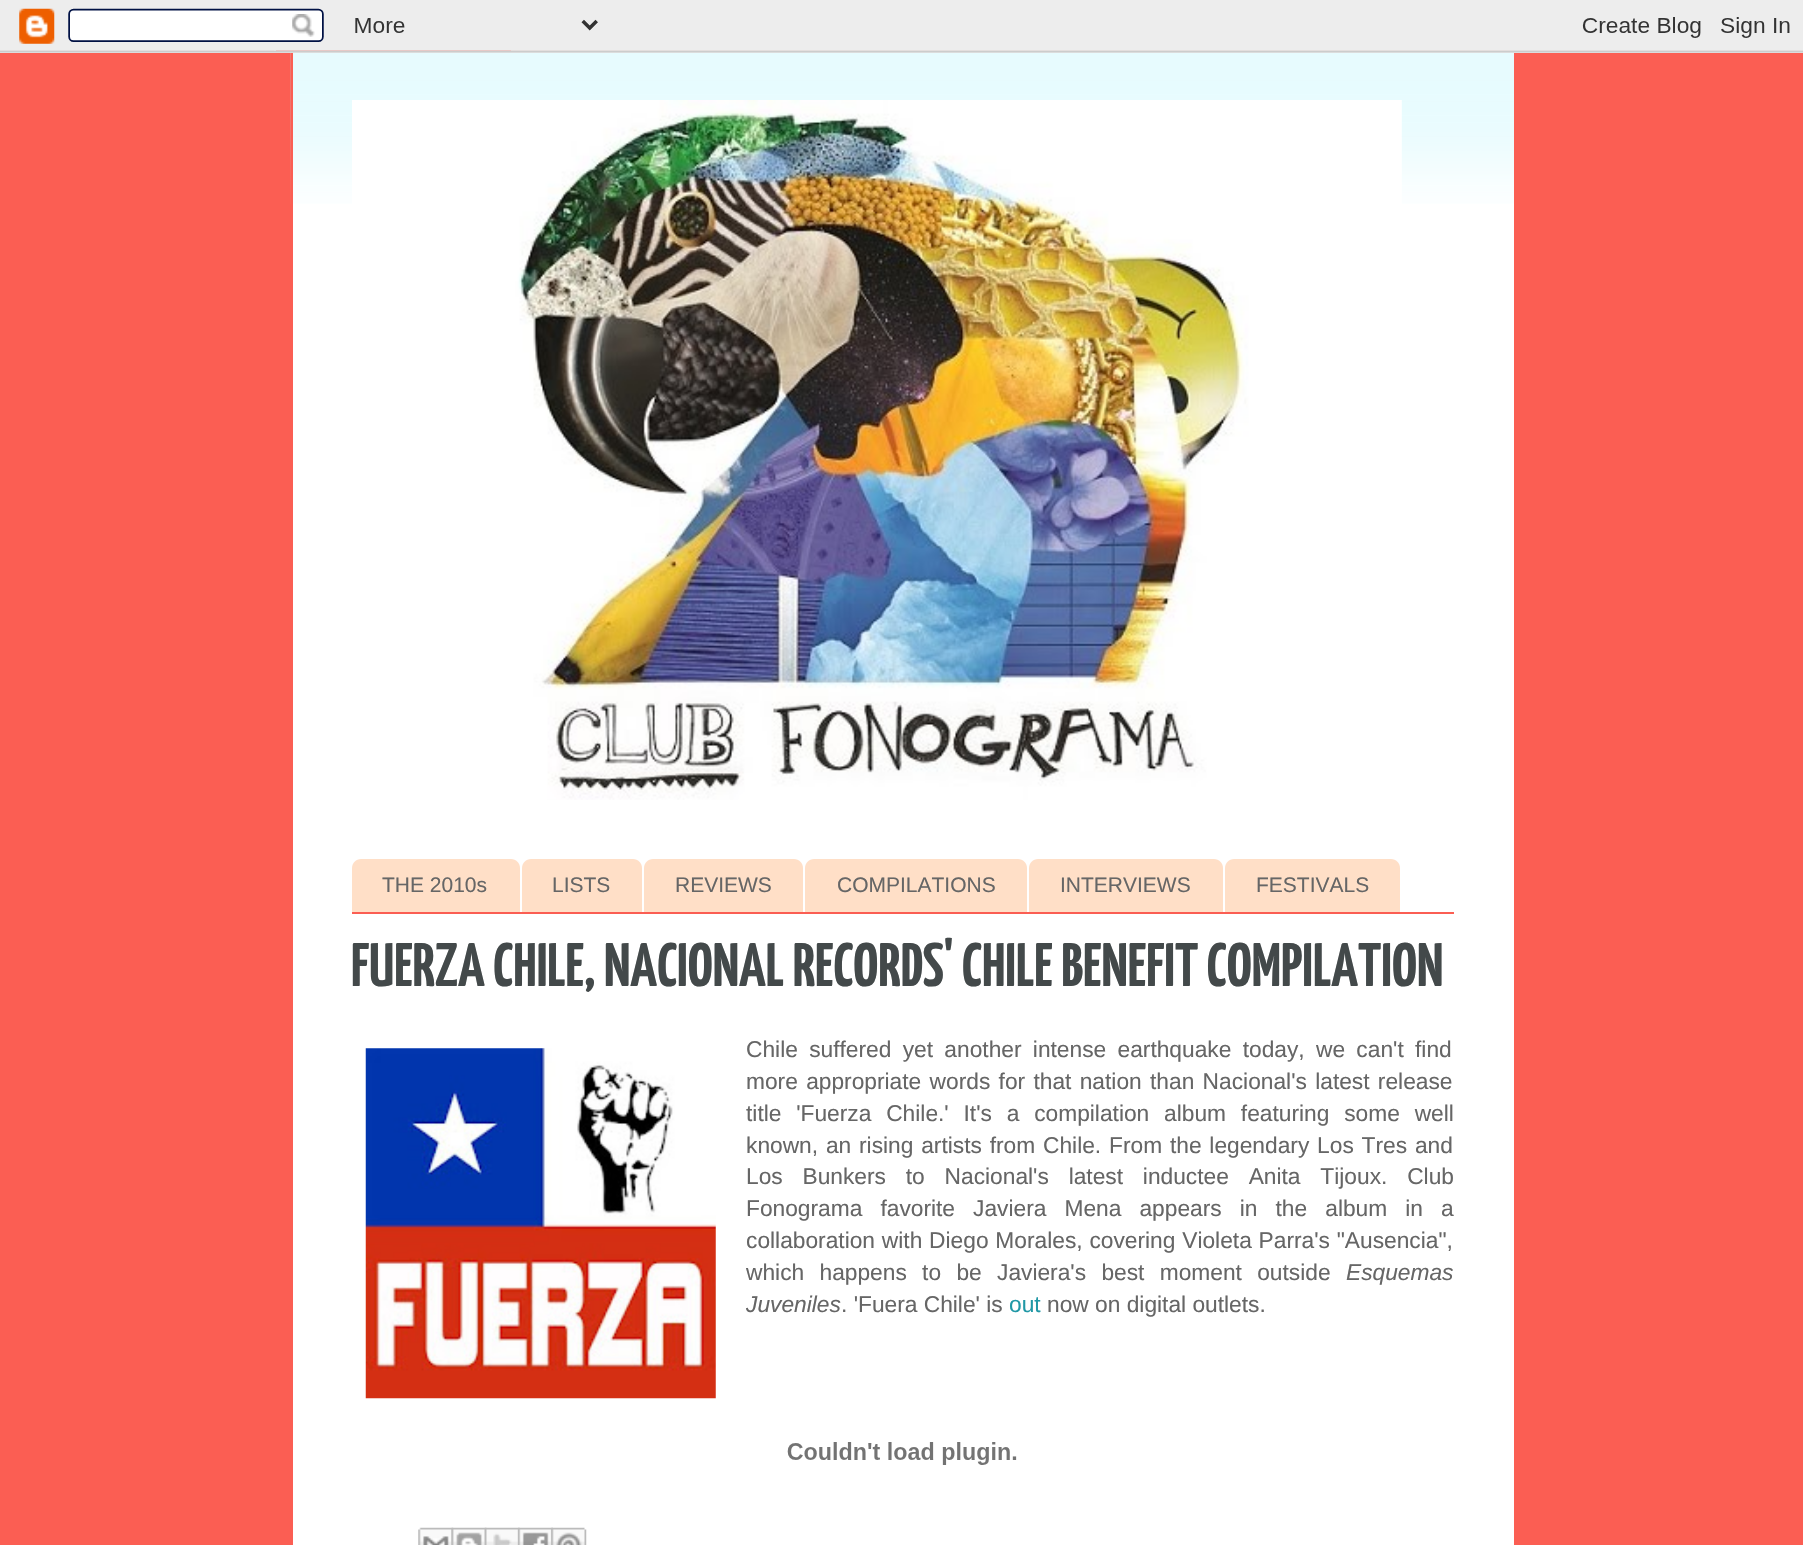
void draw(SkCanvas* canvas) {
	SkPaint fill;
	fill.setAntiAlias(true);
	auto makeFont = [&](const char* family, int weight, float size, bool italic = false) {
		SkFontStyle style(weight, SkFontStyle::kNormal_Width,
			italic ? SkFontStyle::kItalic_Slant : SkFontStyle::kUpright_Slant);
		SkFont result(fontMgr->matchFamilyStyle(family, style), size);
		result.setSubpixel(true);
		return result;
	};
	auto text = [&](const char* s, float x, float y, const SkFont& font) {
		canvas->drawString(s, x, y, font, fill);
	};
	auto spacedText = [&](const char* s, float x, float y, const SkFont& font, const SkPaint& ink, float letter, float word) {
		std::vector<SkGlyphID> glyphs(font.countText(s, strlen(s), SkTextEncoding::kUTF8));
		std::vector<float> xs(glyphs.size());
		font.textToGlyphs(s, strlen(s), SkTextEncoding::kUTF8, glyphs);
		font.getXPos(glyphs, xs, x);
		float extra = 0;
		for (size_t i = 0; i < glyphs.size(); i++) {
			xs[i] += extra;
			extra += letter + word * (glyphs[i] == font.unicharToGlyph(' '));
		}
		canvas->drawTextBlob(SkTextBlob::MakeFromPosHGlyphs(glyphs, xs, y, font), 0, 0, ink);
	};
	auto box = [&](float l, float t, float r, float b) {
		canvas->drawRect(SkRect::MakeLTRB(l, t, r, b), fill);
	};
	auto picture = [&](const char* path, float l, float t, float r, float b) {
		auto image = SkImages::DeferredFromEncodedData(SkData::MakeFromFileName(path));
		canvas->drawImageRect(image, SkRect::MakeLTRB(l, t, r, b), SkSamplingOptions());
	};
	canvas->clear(0xFFFB5E53);
	picture("image0.png", 0, 0, 1803, 53);
	fill.setColor(0xFFFFFFFF);
	box(293, 53, 1514, 1545);
	picture("image1.png", 290, 53, 1514, 204);
	fill.setColor(0xFFFB5E53);
	box(291, 53, 293, 204);
	picture("image2.png", 352, 100, 1402, 800);
	box(352, 912, 1454, 914);
	fill.setColor(0xFFFFDFC7);
	canvas->drawPath(SkPathBuilder().moveTo(361, 859).lineTo(511, 859).cubicTo(516, 859, 520, 863, 520, 868).lineTo(520, 912).lineTo(352, 912).lineTo(352, 868).cubicTo(352, 863, 356, 859, 361, 859).close().detach(), fill);
	canvas->drawPath(SkPathBuilder().moveTo(531, 859).lineTo(633, 859).cubicTo(638, 859, 642, 863, 642, 868).lineTo(642, 912).lineTo(522, 912).lineTo(522, 868).cubicTo(522, 863, 526, 859, 531, 859).close().detach(), fill);
	canvas->drawPath(SkPathBuilder().moveTo(653, 859).lineTo(794, 859).cubicTo(799, 859, 803, 863, 803, 868).lineTo(803, 912).lineTo(644, 912).lineTo(644, 868).cubicTo(644, 863, 648, 859, 653, 859).close().detach(), fill);
	canvas->drawPath(SkPathBuilder().moveTo(814, 859).lineTo(1018, 859).cubicTo(1023, 859, 1027, 863, 1027, 868).lineTo(1027, 912).lineTo(805, 912).lineTo(805, 868).cubicTo(805, 863, 809, 859, 814, 859).close().detach(), fill);
	canvas->drawPath(SkPathBuilder().moveTo(1038, 859).lineTo(1214, 859).cubicTo(1219, 859, 1223, 863, 1223, 868).lineTo(1223, 912).lineTo(1029, 912).lineTo(1029, 868).cubicTo(1029, 863, 1033, 859, 1038, 859).close().detach(), fill);
	canvas->drawPath(SkPathBuilder().moveTo(1234, 859).lineTo(1391, 859).cubicTo(1396, 859, 1400, 863, 1400, 868).lineTo(1400, 912).lineTo(1225, 912).lineTo(1225, 868).cubicTo(1225, 863, 1229, 859, 1234, 859).close().detach(), fill);
	picture("image3.png", 365, 1048, 716, 1399);
	picture("image4.png", 787, 1442, 1017, 1465);
	picture("image5.png", 418, 1527, 454, 1545);
	picture("image6.png", 451, 1527, 487, 1545);
	picture("image7.png", 484, 1527, 520, 1545);
	picture("image8.png", 518, 1527, 553, 1545);
	picture("image9.png", 551, 1527, 587, 1545);
	auto font1 = makeFont("Liberation Sans", 400, 21);
	fill.setColor(0xFF666666);
	text("THE 2010s", 382, 892, font1);
	text("LISTS", 552, 892, font1);
	text("REVIEWS", 675, 892, font1);
	text("COMPILATIONS", 837, 892, font1);
	text("INTERVIEWS", 1060, 892, font1);
	text("FESTIVALS", 1256, 892, font1);
	auto font2 = makeFont("Yanone Kaffeesatz", 200, 61.25f);
	fill.setColor(0xFF43494A);
	text("FUERZA CHILE, NACIONAL RECORDS' CHILE BENEFIT COMPILATION", 351, 986, font2);
	auto font3 = makeFont("Liberation Sans", 400, 22.75f);
	fill.setColor(0xFF666666);
	spacedText("Chile suffered yet another intense earthquake today, we can't find", 746, 1057, font3, fill, 0, 5);
	spacedText("more appropriate words for that nation than Nacional's latest release", 746, 1089, font3, fill, 0, 2);
	spacedText("title 'Fuerza Chile.' It's a compilation album featuring some well", 746, 1121, font3, fill, 0, 8.5f);
	spacedText("known, an rising artists from Chile. From the legendary Los Tres and", 746, 1153, font3, fill, 0, 1.5f);
	spacedText("Los Bunkers to Nacional's latest inductee Anita Tijoux. Club", 746, 1184, font3, fill, 0, 13.5f);
	spacedText("Fonograma favorite Javiera Mena appears in the album in a", 746, 1216, font3, fill, 0, 11.75f);
	spacedText("collaboration with Diego Morales, covering Violeta Parra's \"Ausencia\",", 746, 1248, font3, fill, 0, 0.5f);
	spacedText("which happens to be Javiera's best moment outside", 746, 1280, font3, fill, 0, 9);
	auto font4 = makeFont("Liberation Sans", 400, 22.75f, true);
	text("Esquemas", 1346, 1280, font4);
	text("Juveniles", 746, 1312, font4);
	text(". 'Fuera Chile' is", 841, 1312, font3);
	fill.setColor(0xFF2198A6);
	text("out", 1009, 1312, font3);
	fill.setColor(0xFF666666);
	text("now on digital outlets.", 1047, 1312, font3);
}
